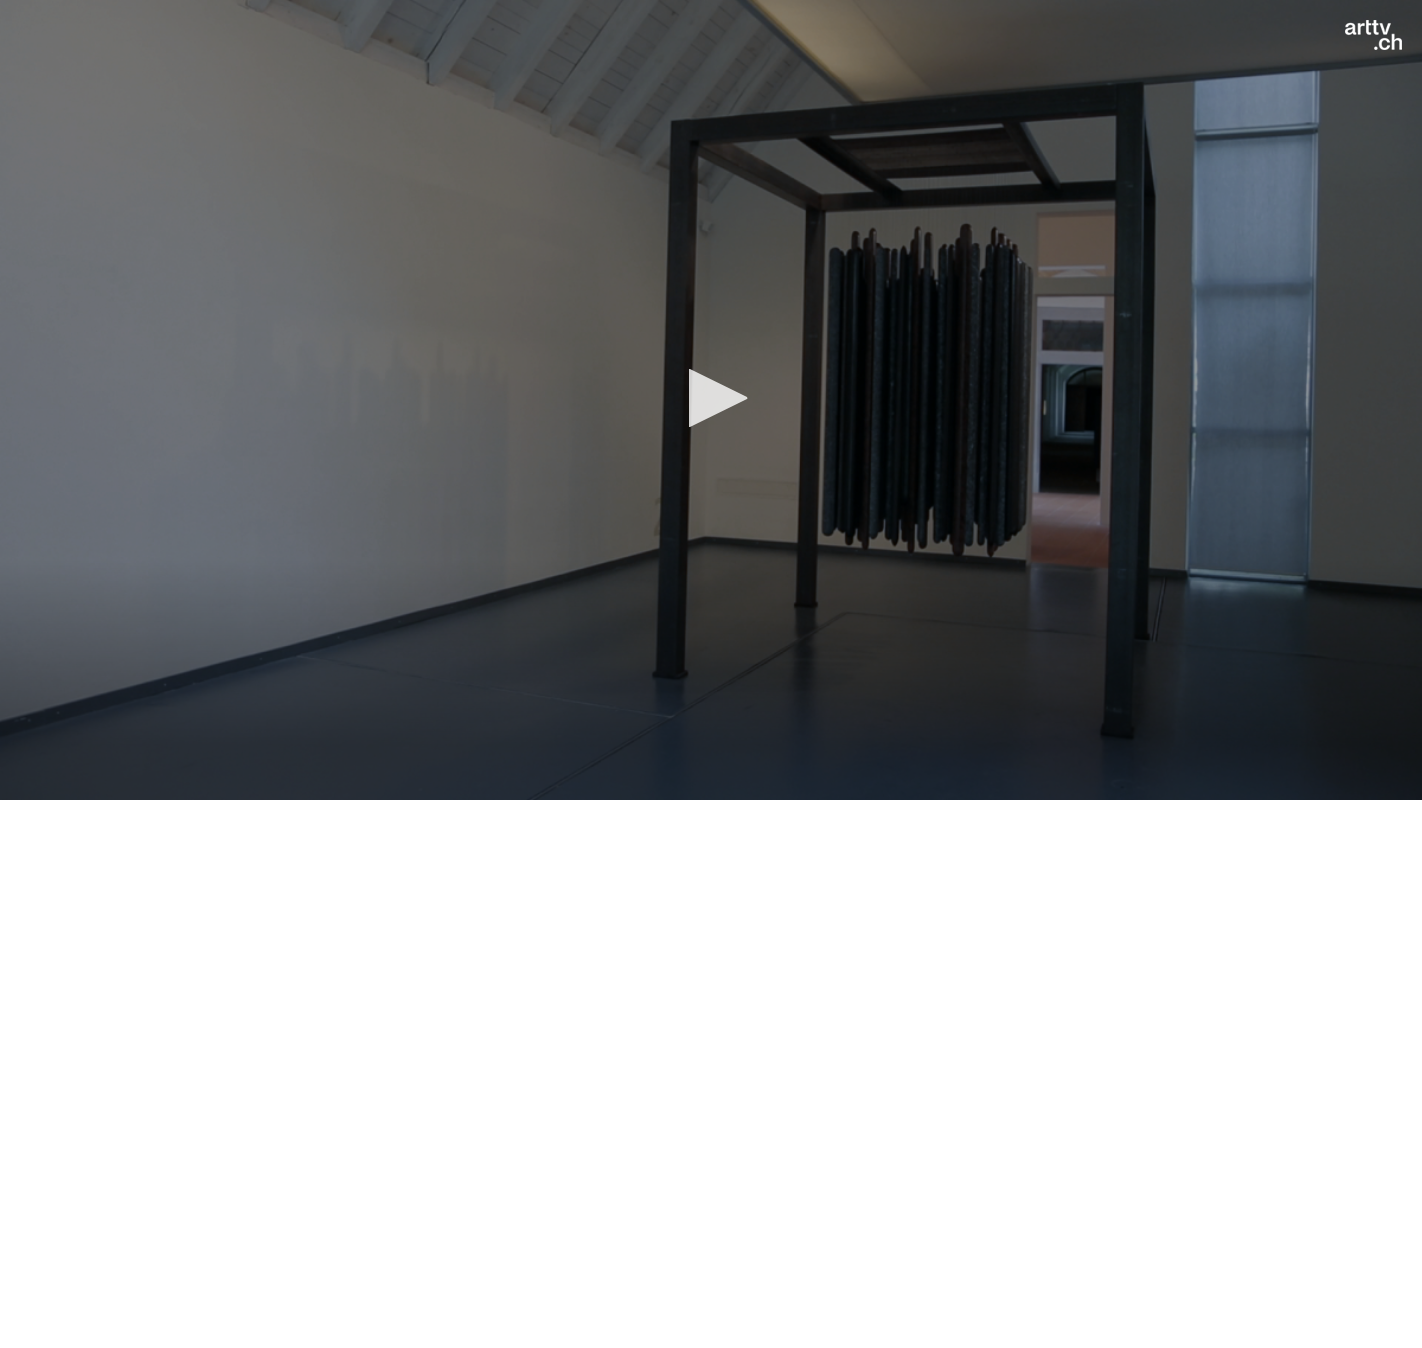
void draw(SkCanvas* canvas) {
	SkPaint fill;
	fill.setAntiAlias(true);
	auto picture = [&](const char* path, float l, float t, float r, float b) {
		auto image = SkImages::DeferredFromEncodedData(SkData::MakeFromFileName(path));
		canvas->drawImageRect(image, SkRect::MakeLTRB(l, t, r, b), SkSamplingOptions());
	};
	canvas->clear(0xFFFFFFFF);
	picture("image0.png", 0, 0, 1422, 800);
	picture("image1.png", 1345, 20, 1402, 50);
	fill.setColor(0xCCFFFFFF);
	canvas->drawPath(SkPathBuilder().moveTo(690, 427).lineTo(689, 427).lineTo(689, 369).lineTo(690, 369).lineTo(747, 397).cubicTo(747, 398, 748, 398, 747, 399).close().detach(), fill);
}
